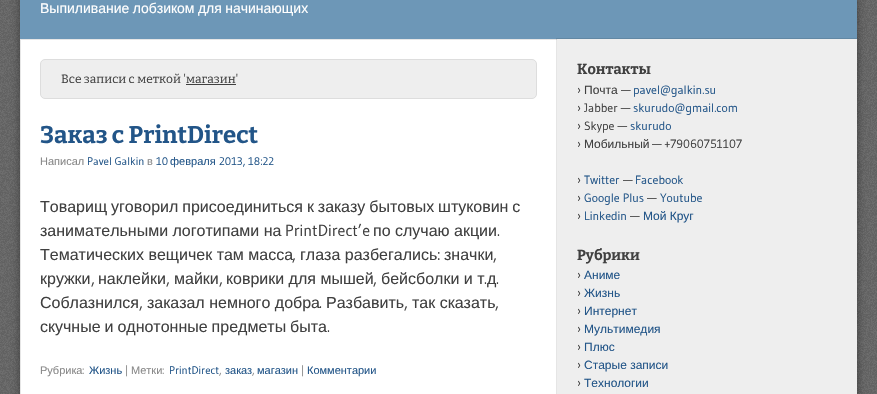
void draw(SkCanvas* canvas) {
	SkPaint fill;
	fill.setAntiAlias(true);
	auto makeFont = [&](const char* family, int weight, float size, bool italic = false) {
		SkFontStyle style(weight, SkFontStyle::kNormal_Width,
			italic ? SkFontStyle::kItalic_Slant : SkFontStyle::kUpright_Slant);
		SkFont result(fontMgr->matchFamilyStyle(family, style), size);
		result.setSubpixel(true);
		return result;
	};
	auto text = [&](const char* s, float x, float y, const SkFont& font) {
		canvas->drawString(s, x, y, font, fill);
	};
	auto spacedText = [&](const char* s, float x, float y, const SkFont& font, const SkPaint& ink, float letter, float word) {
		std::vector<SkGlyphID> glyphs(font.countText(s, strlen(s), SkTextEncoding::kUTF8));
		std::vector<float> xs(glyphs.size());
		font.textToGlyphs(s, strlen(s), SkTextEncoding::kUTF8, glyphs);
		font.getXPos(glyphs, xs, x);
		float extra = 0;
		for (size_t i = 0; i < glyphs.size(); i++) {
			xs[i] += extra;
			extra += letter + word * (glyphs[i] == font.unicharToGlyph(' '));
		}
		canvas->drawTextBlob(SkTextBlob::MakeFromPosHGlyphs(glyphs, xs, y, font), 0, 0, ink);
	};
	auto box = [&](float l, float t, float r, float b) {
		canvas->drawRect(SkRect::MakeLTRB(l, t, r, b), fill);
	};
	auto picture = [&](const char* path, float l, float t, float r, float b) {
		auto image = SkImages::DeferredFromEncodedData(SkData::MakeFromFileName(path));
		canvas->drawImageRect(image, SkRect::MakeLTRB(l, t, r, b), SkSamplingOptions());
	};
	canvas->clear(0xFF666666);
	picture("image0.png", 0, 0, 877, 394);
	fill.setColor(0x66000000);
	fill.setMaskFilter(SkMaskFilter::MakeBlur(kNormal_SkBlurStyle, 5));
	canvas->drawRoundRect(SkRect::MakeLTRB(20, -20, 857, 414), 5, 5, fill);
	fill.setMaskFilter(nullptr);
	fill.setColor(0xFF6D97B7);
	box(20, 0, 857, 39);
	fill.setColor(0xFFFFFFFF);
	box(21, 40, 557, 394);
	fill.setStyle(SkPaint::kStroke_Style);
	fill.setStrokeWidth(1);
	fill.setColor(0xFFE6E6E6);
	canvas->drawRect(SkRect::MakeLTRB(20.5f, 39.5f, 856.5f, 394.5f), fill);
	fill.setStyle(SkPaint::kFill_Style);
	fill.setColor(0xFFEEEEEE);
	canvas->drawRoundRect(SkRect::MakeLTRB(40.5f, 59.5f, 536.5f, 98.5f), 4.5f, 4.5f, fill);
	fill.setStyle(SkPaint::kStroke_Style);
	fill.setColor(0xFFDDDDDD);
	canvas->drawRoundRect(SkRect::MakeLTRB(40.5f, 59.5f, 536.5f, 98.5f), 4.5f, 4.5f, fill);
	fill.setStyle(SkPaint::kFill_Style);
	fill.setColor(0xFF404040);
	box(186, 84, 236, 85);
	fill.setColor(0x1A000000);
	canvas->drawPath(SkPathBuilder().moveTo(556, 38).lineTo(556, 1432).cubicTo(556, 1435, 559, 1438, 562, 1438).lineTo(857, 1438).lineTo(857, 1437).lineTo(562, 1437).cubicTo(559, 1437, 557, 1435, 557, 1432).lineTo(557, 39).lineTo(857, 39).lineTo(857, 38).close().detach(), fill);
	fill.setColor(0xFFEEEEEE);
	box(557, 39, 857, 394);
	auto font1 = makeFont("Liberation Sans", 400, 14);
	fill.setColor(0xFFFFFFFF);
	spacedText("Выпиливание лобзиком для начинающих", 40, 13, font1, fill, 0, -0.5f);
	auto font2 = makeFont("Bitter", 400, 12);
	fill.setColor(0xFF404040);
	text("Все записи с меткой 'магазин'", 61, 83, font2);
	auto font3 = makeFont("Bitter", 700, 24);
	fill.setColor(0xFF225588);
	text("Заказ с PrintDirect", 40, 143, font3);
	auto font4 = makeFont("Liberation Sans", 400, 11);
	fill.setColor(0xFF888888);
	text("Написал", 40, 165, font4);
	auto font5 = makeFont("Gudea", 400, 11);
	fill.setColor(0xFF225588);
	text("Pavel Galkin", 87, 165, font5);
	fill.setColor(0xFF888888);
	text("в", 147, 165, font4);
	fill.setColor(0xFF225588);
	text("10", 156, 165, font5);
	text("февраля", 170, 165, font4);
	text("2013, 18:22", 219, 165, font5);
	auto font6 = makeFont("Liberation Sans", 400, 16);
	fill.setColor(0xFF404040);
	spacedText("Товарищ уговорил присоединиться к заказу бытовых штуковин с", 40, 212, font6, fill, 0, -0.5f);
	text("занимательными логотипами на", 40, 236, font6);
	auto font7 = makeFont("Gudea", 400, 16);
	text("PrintDirect’e", 285, 236, font7);
	text("по случаю акции", 373, 236, font6);
	text(".", 497, 236, font7);
	text("Тематических вещичек там масса", 40, 260, font6);
	text("глаза разбегались", 300, 260, font6);
	text(":", 437, 260, font7);
	text("значки", 444, 260, font6);
	text(",", 292, 260, font7);
	text(",", 493, 260, font7);
	text("кружки", 40, 284, font6);
	text(",", 91, 284, font7);
	text("наклейки", 98, 284, font6);
	text(",", 166, 284, font7);
	text("майки", 174, 284, font6);
	text(",", 219, 284, font7);
	text("коврики для мышей", 226, 284, font6);
	text(",", 373, 284, font7);
	text("бейсболки и т", 381, 284, font6);
	text(".", 484, 284, font7);
	text("д", 487, 284, font6);
	text(".", 496, 284, font7);
	text("Соблазнился", 40, 308, font6);
	text(",", 139, 308, font7);
	text("заказал немного добра", 147, 308, font6);
	text(".", 319, 308, font7);
	text("Разбавить", 326, 308, font6);
	text(",", 404, 308, font7);
	text("так сказать", 412, 308, font6);
	text(",", 495, 308, font7);
	spacedText("скучные и однотонные предметы быта", 40, 332, font6, fill, 0, -0.5f);
	text(".", 327, 332, font7);
	fill.setColor(0xFF888888);
	text("Рубрика", 40, 374, font4);
	text(":", 82, 374, font5);
	fill.setColor(0xFF225588);
	text("Жизнь", 89, 374, font4);
	fill.setColor(0xFF888888);
	text("|", 125, 374, font5);
	text("Метки", 131, 374, font4);
	text(":", 162, 374, font5);
	fill.setColor(0xFF225588);
	text("PrintDirect", 169, 374, font5);
	fill.setColor(0xFF888888);
	text(",", 219, 374, font5);
	fill.setColor(0xFF225588);
	text("заказ", 225, 374, font4);
	fill.setColor(0xFF888888);
	text(",", 252, 374, font5);
	fill.setColor(0xFF225588);
	text("магазин", 257, 374, font4);
	fill.setColor(0xFF888888);
	text("|", 301, 374, font5);
	fill.setColor(0xFF225588);
	text("Комментарии", 307, 374, font4);
	auto font8 = makeFont("Bitter", 700, 14.5f);
	fill.setColor(0xFF404040);
	text("Контакты", 577, 74, font8);
	auto font9 = makeFont("Gudea", 400, 12);
	text("›", 577, 94, font9);
	auto font10 = makeFont("Liberation Sans", 400, 12);
	text("Почта", 584, 94, font10);
	text("—", 621, 94, font9);
	fill.setColor(0xFF225588);
	text("pavel@galkin.su", 633, 94, font9);
	fill.setColor(0xFF404040);
	text("› Jabber —", 577, 112, font9);
	fill.setColor(0xFF225588);
	text("skurudo@gmail.com", 633, 112, font9);
	fill.setColor(0xFF404040);
	text("› Skype —", 577, 130, font9);
	fill.setColor(0xFF225588);
	text("skurudo", 630, 130, font9);
	fill.setColor(0xFF404040);
	text("›", 577, 148, font9);
	text("Мобильный", 584, 148, font10);
	text("— +79060751107", 652, 148, font9);
	text("›", 577, 184, font9);
	fill.setColor(0xFF225588);
	text("Twitter", 584, 184, font9);
	fill.setColor(0xFF404040);
	text("—", 623, 184, font9);
	fill.setColor(0xFF225588);
	text("Facebook", 635, 184, font9);
	fill.setColor(0xFF404040);
	text("›", 577, 202, font9);
	fill.setColor(0xFF225588);
	text("Google Plus", 584, 202, font9);
	fill.setColor(0xFF404040);
	text("—", 647, 202, font9);
	fill.setColor(0xFF225588);
	text("Youtube", 660, 202, font9);
	fill.setColor(0xFF404040);
	text("›", 577, 220, font9);
	fill.setColor(0xFF225588);
	text("Linkedin", 584, 220, font9);
	fill.setColor(0xFF404040);
	text("—", 630, 220, font9);
	fill.setColor(0xFF225588);
	text("Мой Круг", 643, 220, font10);
	fill.setColor(0xFF404040);
	text("Рубрики", 577, 260, font8);
	text("›", 577, 279, font9);
	fill.setColor(0xFF225588);
	text("Аниме", 584, 279, font10);
	fill.setColor(0xFF404040);
	text("›", 577, 297, font9);
	fill.setColor(0xFF225588);
	text("Жизнь", 584, 297, font10);
	fill.setColor(0xFF404040);
	text("›", 577, 315, font9);
	fill.setColor(0xFF225588);
	text("Интернет", 584, 315, font10);
	fill.setColor(0xFF404040);
	text("›", 577, 333, font9);
	fill.setColor(0xFF225588);
	text("Мультимедия", 584, 333, font10);
	fill.setColor(0xFF404040);
	text("›", 577, 351, font9);
	fill.setColor(0xFF225588);
	text("Плюс", 584, 351, font10);
	fill.setColor(0xFF404040);
	text("›", 577, 369, font9);
	fill.setColor(0xFF225588);
	text("Старые записи", 584, 369, font10);
	fill.setColor(0xFF404040);
	text("›", 577, 387, font9);
	fill.setColor(0xFF225588);
	text("Технологии", 584, 387, font10);
}
